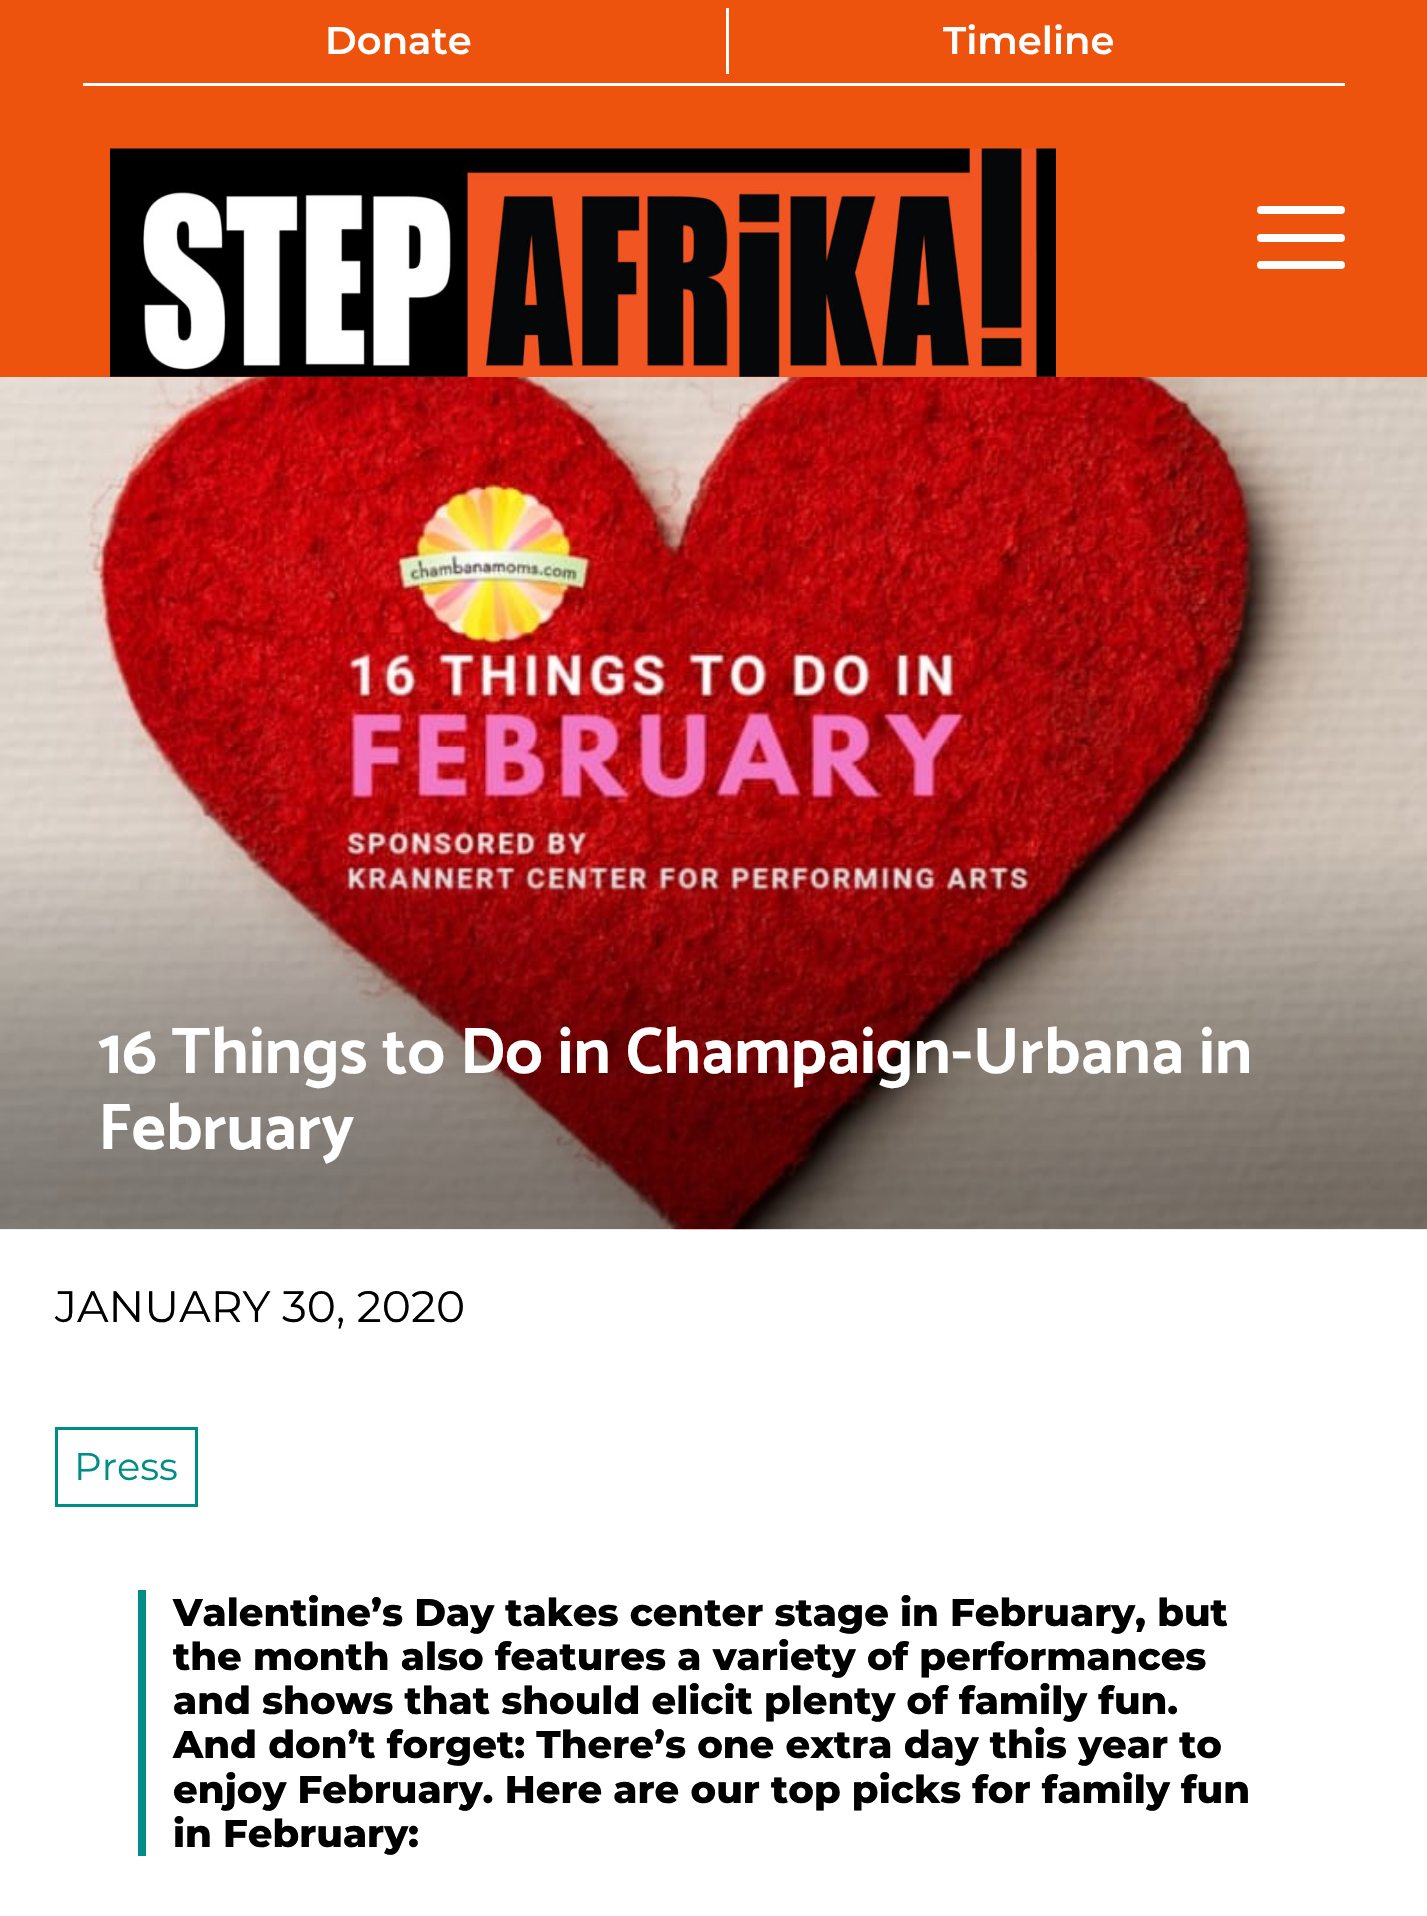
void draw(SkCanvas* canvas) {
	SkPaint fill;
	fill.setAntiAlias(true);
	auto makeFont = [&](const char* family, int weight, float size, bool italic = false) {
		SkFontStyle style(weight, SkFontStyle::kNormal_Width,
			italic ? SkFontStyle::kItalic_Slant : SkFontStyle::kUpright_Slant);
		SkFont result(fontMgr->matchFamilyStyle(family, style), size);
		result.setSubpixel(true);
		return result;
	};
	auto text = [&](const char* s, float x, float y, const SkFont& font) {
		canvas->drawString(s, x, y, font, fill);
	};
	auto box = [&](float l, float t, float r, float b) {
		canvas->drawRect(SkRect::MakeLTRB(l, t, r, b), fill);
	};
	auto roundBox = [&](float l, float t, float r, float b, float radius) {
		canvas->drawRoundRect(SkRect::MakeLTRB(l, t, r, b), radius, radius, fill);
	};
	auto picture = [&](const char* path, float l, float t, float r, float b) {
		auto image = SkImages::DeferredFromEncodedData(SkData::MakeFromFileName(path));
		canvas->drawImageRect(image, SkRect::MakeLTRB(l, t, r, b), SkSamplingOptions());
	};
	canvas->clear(0xFFFFFFFF);
	fill.setColor(0xFFED530C);
	box(0, 0, 1427, 377);
	fill.setColor(0xFFFFFFFF);
	box(83, 83, 1345, 86);
	box(726, 8, 729, 74);
	picture("image0.png", 110, 148, 1056, 377);
	roundBox(1257, 234, 1345, 242, 4);
	roundBox(1257, 206, 1345, 214, 4);
	roundBox(1257, 261, 1345, 269, 4);
	picture("image1.png", 0, 377, 1427, 1230);
	fill.setStyle(SkPaint::kStroke_Style);
	fill.setStrokeWidth(3);
	fill.setColor(0xFF018D87);
	canvas->drawRect(SkRect::MakeLTRB(56.5f, 1428.5f, 196.5f, 1505.5f), fill);
	fill.setStyle(SkPaint::kFill_Style);
	box(138, 1590, 146, 1856);
	auto font1 = makeFont("Montserrat", 600, 38.5f);
	fill.setColor(0xFFFFFFFF);
	text("Donate", 325, 54, font1);
	text("Timeline", 943, 54, font1);
	auto font2 = makeFont("Catamaran", 100, 66);
	text("16 Things to Do in Champaign-Urbana in", 98, 1073, font2);
	text("February", 98, 1149, font2);
	auto font3 = makeFont("Montserrat", 400, 44);
	fill.setColor(0xFF000000);
	text("JANUARY 30, 2020", 55, 1322, font3);
	auto font4 = makeFont("Montserrat", 400, 38.5f);
	fill.setColor(0xFF018D87);
	text("Press", 74, 1480, font4);
	auto font5 = makeFont("Montserrat", 800, 38.5f);
	fill.setColor(0xFF000000);
	text("Valentine’s Day takes center stage in February, but", 173, 1626, font5);
	text("the month also features a variety of performances", 173, 1670, font5);
	text("and shows that should elicit plenty of family fun.", 173, 1714, font5);
	text("And don’t forget: There’s one extra day this year to", 173, 1758, font5);
	text("enjoy February. Here are our top picks for family fun", 173, 1803, font5);
	text("in February:", 173, 1847, font5);
}
